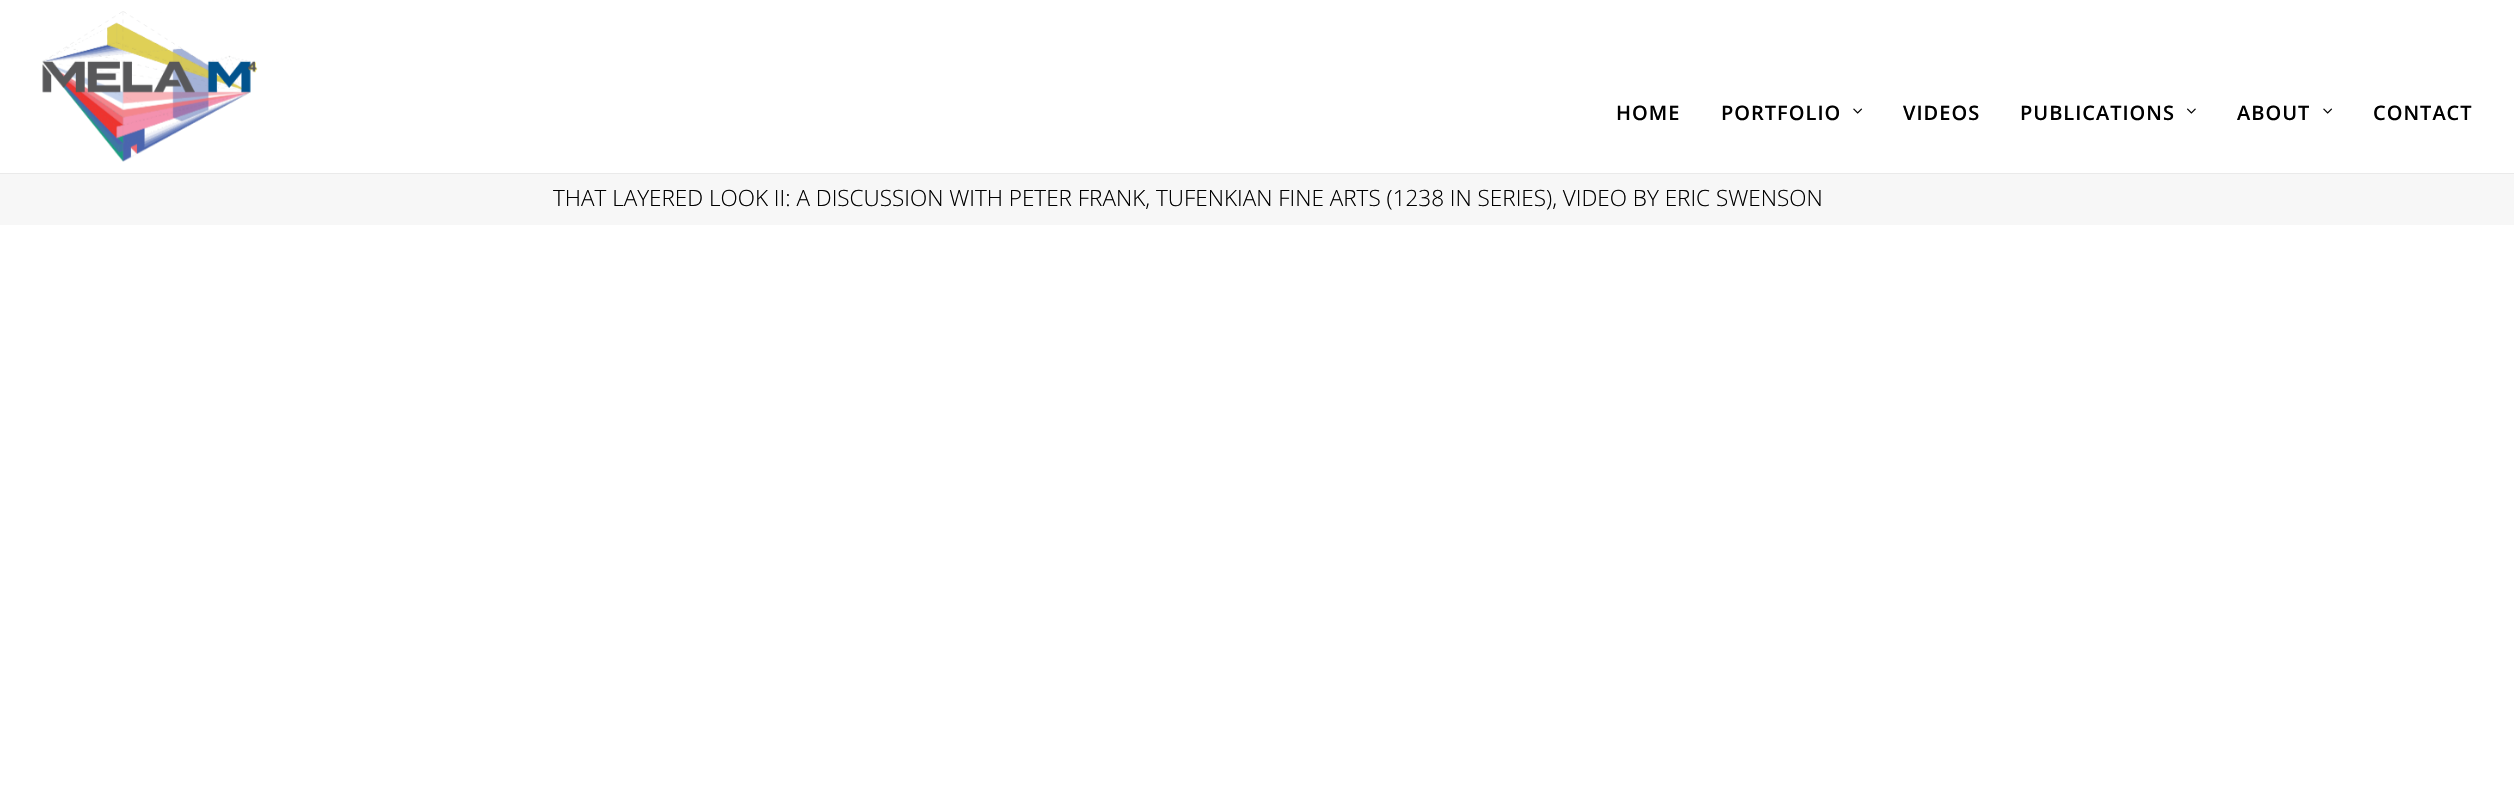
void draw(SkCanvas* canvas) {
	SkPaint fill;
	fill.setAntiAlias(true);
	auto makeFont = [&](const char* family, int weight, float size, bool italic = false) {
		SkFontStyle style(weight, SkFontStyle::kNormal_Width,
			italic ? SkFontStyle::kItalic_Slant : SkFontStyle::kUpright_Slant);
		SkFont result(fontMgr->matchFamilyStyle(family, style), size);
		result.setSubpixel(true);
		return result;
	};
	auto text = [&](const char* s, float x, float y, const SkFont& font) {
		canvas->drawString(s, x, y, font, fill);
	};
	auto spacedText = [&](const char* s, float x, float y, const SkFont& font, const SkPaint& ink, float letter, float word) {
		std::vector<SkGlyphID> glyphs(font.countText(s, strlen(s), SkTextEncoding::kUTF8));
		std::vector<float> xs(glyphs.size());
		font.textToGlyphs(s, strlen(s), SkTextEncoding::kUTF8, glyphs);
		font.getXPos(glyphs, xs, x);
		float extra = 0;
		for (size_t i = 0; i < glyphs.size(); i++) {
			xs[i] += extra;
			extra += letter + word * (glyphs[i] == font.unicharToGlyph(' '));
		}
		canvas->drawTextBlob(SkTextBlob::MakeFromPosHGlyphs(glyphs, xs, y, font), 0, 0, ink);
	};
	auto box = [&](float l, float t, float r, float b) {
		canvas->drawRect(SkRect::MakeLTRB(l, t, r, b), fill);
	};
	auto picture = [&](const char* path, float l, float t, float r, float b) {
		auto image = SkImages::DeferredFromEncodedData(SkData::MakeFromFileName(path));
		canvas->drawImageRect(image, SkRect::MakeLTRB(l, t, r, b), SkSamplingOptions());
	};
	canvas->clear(0xFFF7F7F7);
	fill.setColor(0xFFFFFFFF);
	box(0, 0, 2514, 173);
	fill.setColor(0xFFEAEAEA);
	box(0, 173, 2514, 174);
	picture("image0.png", 42, 11, 258, 162);
	picture("image1.png", 1853, 108, 1863, 114);
	picture("image2.png", 2187, 108, 2196, 114);
	picture("image1.png", 2323, 108, 2333, 114);
	fill.setColor(0xFFFFFFFF);
	box(0, 225, 2514, 794);
	auto font1 = makeFont("Open Sans", 600, 20);
	fill.setColor(0xFF000000);
	spacedText("HOME", 1616, 120, font1, fill, 1, 0);
	spacedText("PORTFOLIO", 1721, 120, font1, fill, 1, 0);
	spacedText("VIDEOS", 1903, 120, font1, fill, 1, 0);
	spacedText("PUBLICATIONS", 2020, 120, font1, fill, 1, 0);
	spacedText("ABOUT", 2237, 120, font1, fill, 1, 0);
	spacedText("CONTACT", 2373, 120, font1, fill, 1, 0);
	auto font2 = makeFont("Open Sans", 300, 22.5f);
	text("THAT LAYERED LOOK II: A DISCUSSION WITH PETER FRANK, TUFENKIAN FINE ARTS (1238 IN SERIES), VIDEO BY ERIC SWENSON", 553, 206, font2);
}
